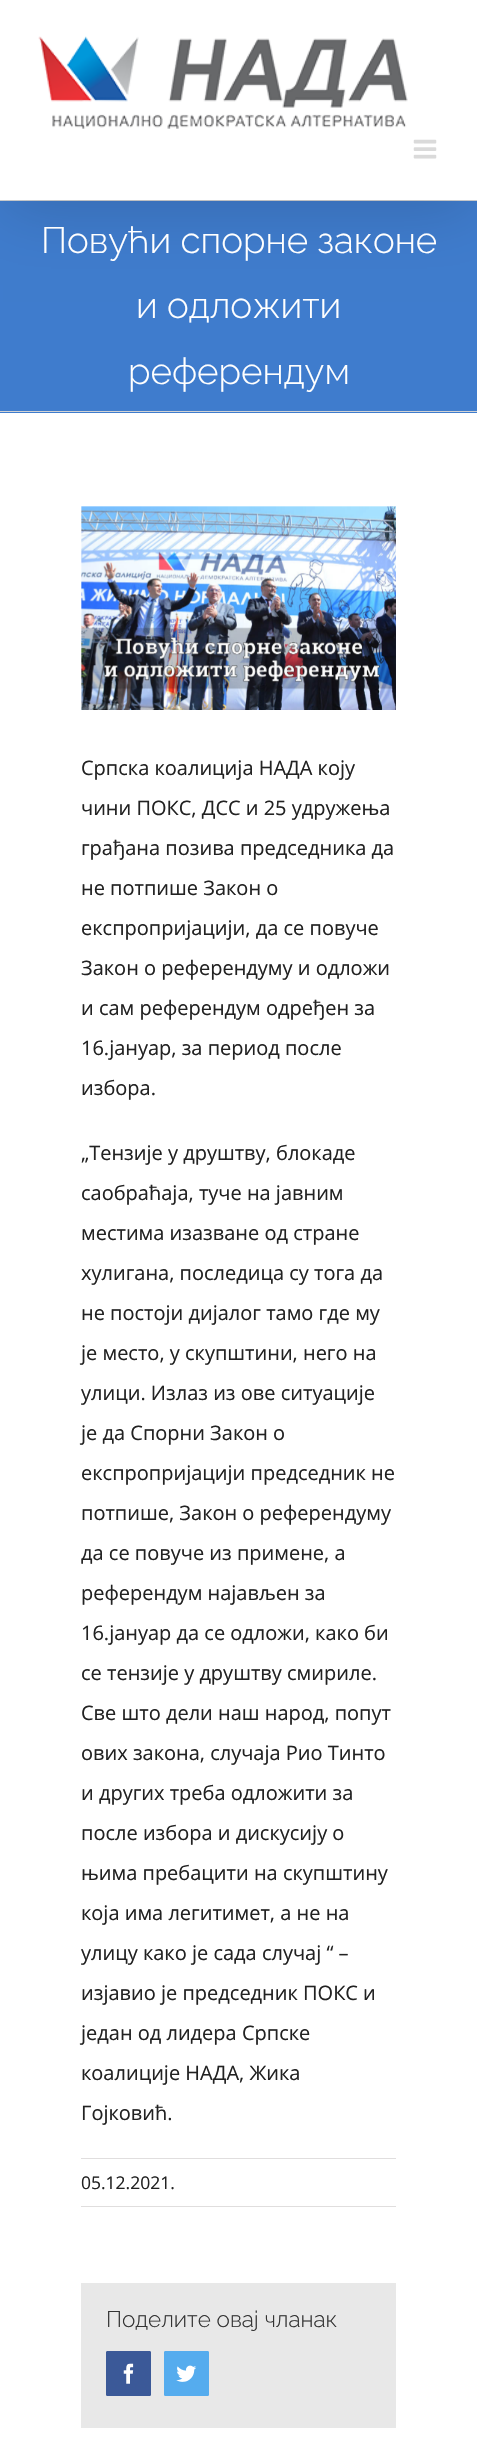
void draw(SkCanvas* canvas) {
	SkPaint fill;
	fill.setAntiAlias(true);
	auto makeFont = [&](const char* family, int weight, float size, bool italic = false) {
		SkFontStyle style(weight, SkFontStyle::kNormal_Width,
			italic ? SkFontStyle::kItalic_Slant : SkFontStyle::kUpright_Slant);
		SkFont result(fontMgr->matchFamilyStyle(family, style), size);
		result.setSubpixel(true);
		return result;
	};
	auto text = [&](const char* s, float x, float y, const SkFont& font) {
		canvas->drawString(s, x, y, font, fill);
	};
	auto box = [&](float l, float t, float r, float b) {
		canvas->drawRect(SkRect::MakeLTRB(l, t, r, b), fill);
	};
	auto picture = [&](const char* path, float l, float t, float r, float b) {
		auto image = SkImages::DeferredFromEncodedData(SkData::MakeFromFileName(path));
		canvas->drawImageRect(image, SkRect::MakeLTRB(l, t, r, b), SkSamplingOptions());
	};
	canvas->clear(0xFF3F7CCD);
	fill.setColor(0xFFD2D3D4);
	box(0, 200, 477, 201);
	fill.setColor(0x24000000);
	fill.setMaskFilter(SkMaskFilter::MakeBlur(kNormal_SkBlurStyle, 31));
	canvas->drawRect(SkRect::MakeLTRB(3, 15, 475, 210), fill);
	fill.setMaskFilter(nullptr);
	fill.setColor(0xFFFFFFFF);
	box(0, 0, 477, 200);
	picture("image0.png", 38, 36, 408, 129);
	picture("image1.png", 413, 139, 437, 159);
	fill.setColor(0xFFD2D3D4);
	box(0, 411, 477, 412);
	fill.setColor(0xFFFFFFFF);
	box(0, 413, 477, 2459);
	picture("image2.png", 81, 506, 396, 710);
	fill.setColor(0xFFE0DEDE);
	box(81, 2158, 396, 2159);
	box(81, 2206, 396, 2207);
	fill.setColor(0xFFE8E8E8);
	box(81, 2283, 396, 2428);
	fill.setColor(0xFF3B5998);
	canvas->drawRoundRect(SkRect::MakeLTRB(106.5f, 2351.5f, 150.5f, 2395.5f), 0.5f, 0.5f, fill);
	fill.setStyle(SkPaint::kStroke_Style);
	fill.setStrokeWidth(1);
	canvas->drawRoundRect(SkRect::MakeLTRB(106.5f, 2351.5f, 150.5f, 2395.5f), 0.5f, 0.5f, fill);
	picture("image3.png", 123, 2363, 134, 2384);
	fill.setStyle(SkPaint::kFill_Style);
	fill.setColor(0xFF55ACEE);
	canvas->drawRoundRect(SkRect::MakeLTRB(164.5f, 2351.5f, 208.5f, 2395.5f), 0.5f, 0.5f, fill);
	fill.setStyle(SkPaint::kStroke_Style);
	canvas->drawRoundRect(SkRect::MakeLTRB(164.5f, 2351.5f, 208.5f, 2395.5f), 0.5f, 0.5f, fill);
	picture("image4.png", 176, 2365, 197, 2382);
	auto font1 = makeFont("Raleway", 300, 36.75f);
	fill.setStyle(SkPaint::kFill_Style);
	fill.setColor(0xFFFFFFFF);
	text("Повући спорне законе", 41, 253, font1);
	text("и одложити", 136, 318, font1);
	text("референдум", 128, 384, font1);
	auto font2 = makeFont("Open Sans", 400, 20);
	fill.setColor(0xFF222222);
	text("Српска коалиција НАДА коју", 81, 775, font2);
	text("чини ПОКС, ДСС и 25 удружења", 81, 815, font2);
	text("грађана позива председника да", 81, 855, font2);
	text("не потпише Закон о", 81, 895, font2);
	text("експропријацији, да се повуче", 81, 935, font2);
	text("Закон о референдуму и одложи", 81, 975, font2);
	text("и сам референдум одређен за", 81, 1015, font2);
	text("16.јануар, за период после", 81, 1055, font2);
	text("избора.", 81, 1095, font2);
	text("„Тензије у друштву, блокаде", 81, 1160, font2);
	text("саобраћаја, туче на јавним", 81, 1200, font2);
	text("местима изазване од стране", 81, 1240, font2);
	text("хулигана, последица су тога да", 81, 1280, font2);
	text("не постоји дијалог тамо где му", 81, 1320, font2);
	text("је место, у скупштини, него на", 81, 1360, font2);
	text("улици. Излаз из ове ситуације", 81, 1400, font2);
	text("је да Спорни Закон о", 81, 1440, font2);
	text("експропријацији председник не", 81, 1480, font2);
	text("потпише, Закон о референдуму", 81, 1520, font2);
	text("да се повуче из примене, а", 81, 1560, font2);
	text("референдум најављен за", 81, 1600, font2);
	text("16.јануар да се одложи, како би", 81, 1640, font2);
	text("се тензије у друштву смириле.", 81, 1680, font2);
	text("Све што дели наш народ, попут", 81, 1720, font2);
	text("ових закона, случаја Рио Тинто", 81, 1760, font2);
	text("и других треба одложити за", 81, 1800, font2);
	text("после избора и дискусију о", 81, 1840, font2);
	text("њима пребацити на скупштину", 81, 1880, font2);
	text("која има легитимет, а не на", 81, 1920, font2);
	text("улицу како је сада случај “ –", 81, 1960, font2);
	text("изјавио је председник ПОКС и", 81, 2000, font2);
	text("један од лидера Српске", 81, 2040, font2);
	text("коалиције НАДА, Жика", 81, 2080, font2);
	text("Гојковић.", 81, 2120, font2);
	auto font3 = makeFont("Open Sans", 400, 17.5f);
	text("05.12.2021.", 81, 2189, font3);
	auto font4 = makeFont("Raleway", 300, 22.5f);
	fill.setColor(0xFF333333);
	text("Поделите овај чланак", 106, 2327, font4);
}
